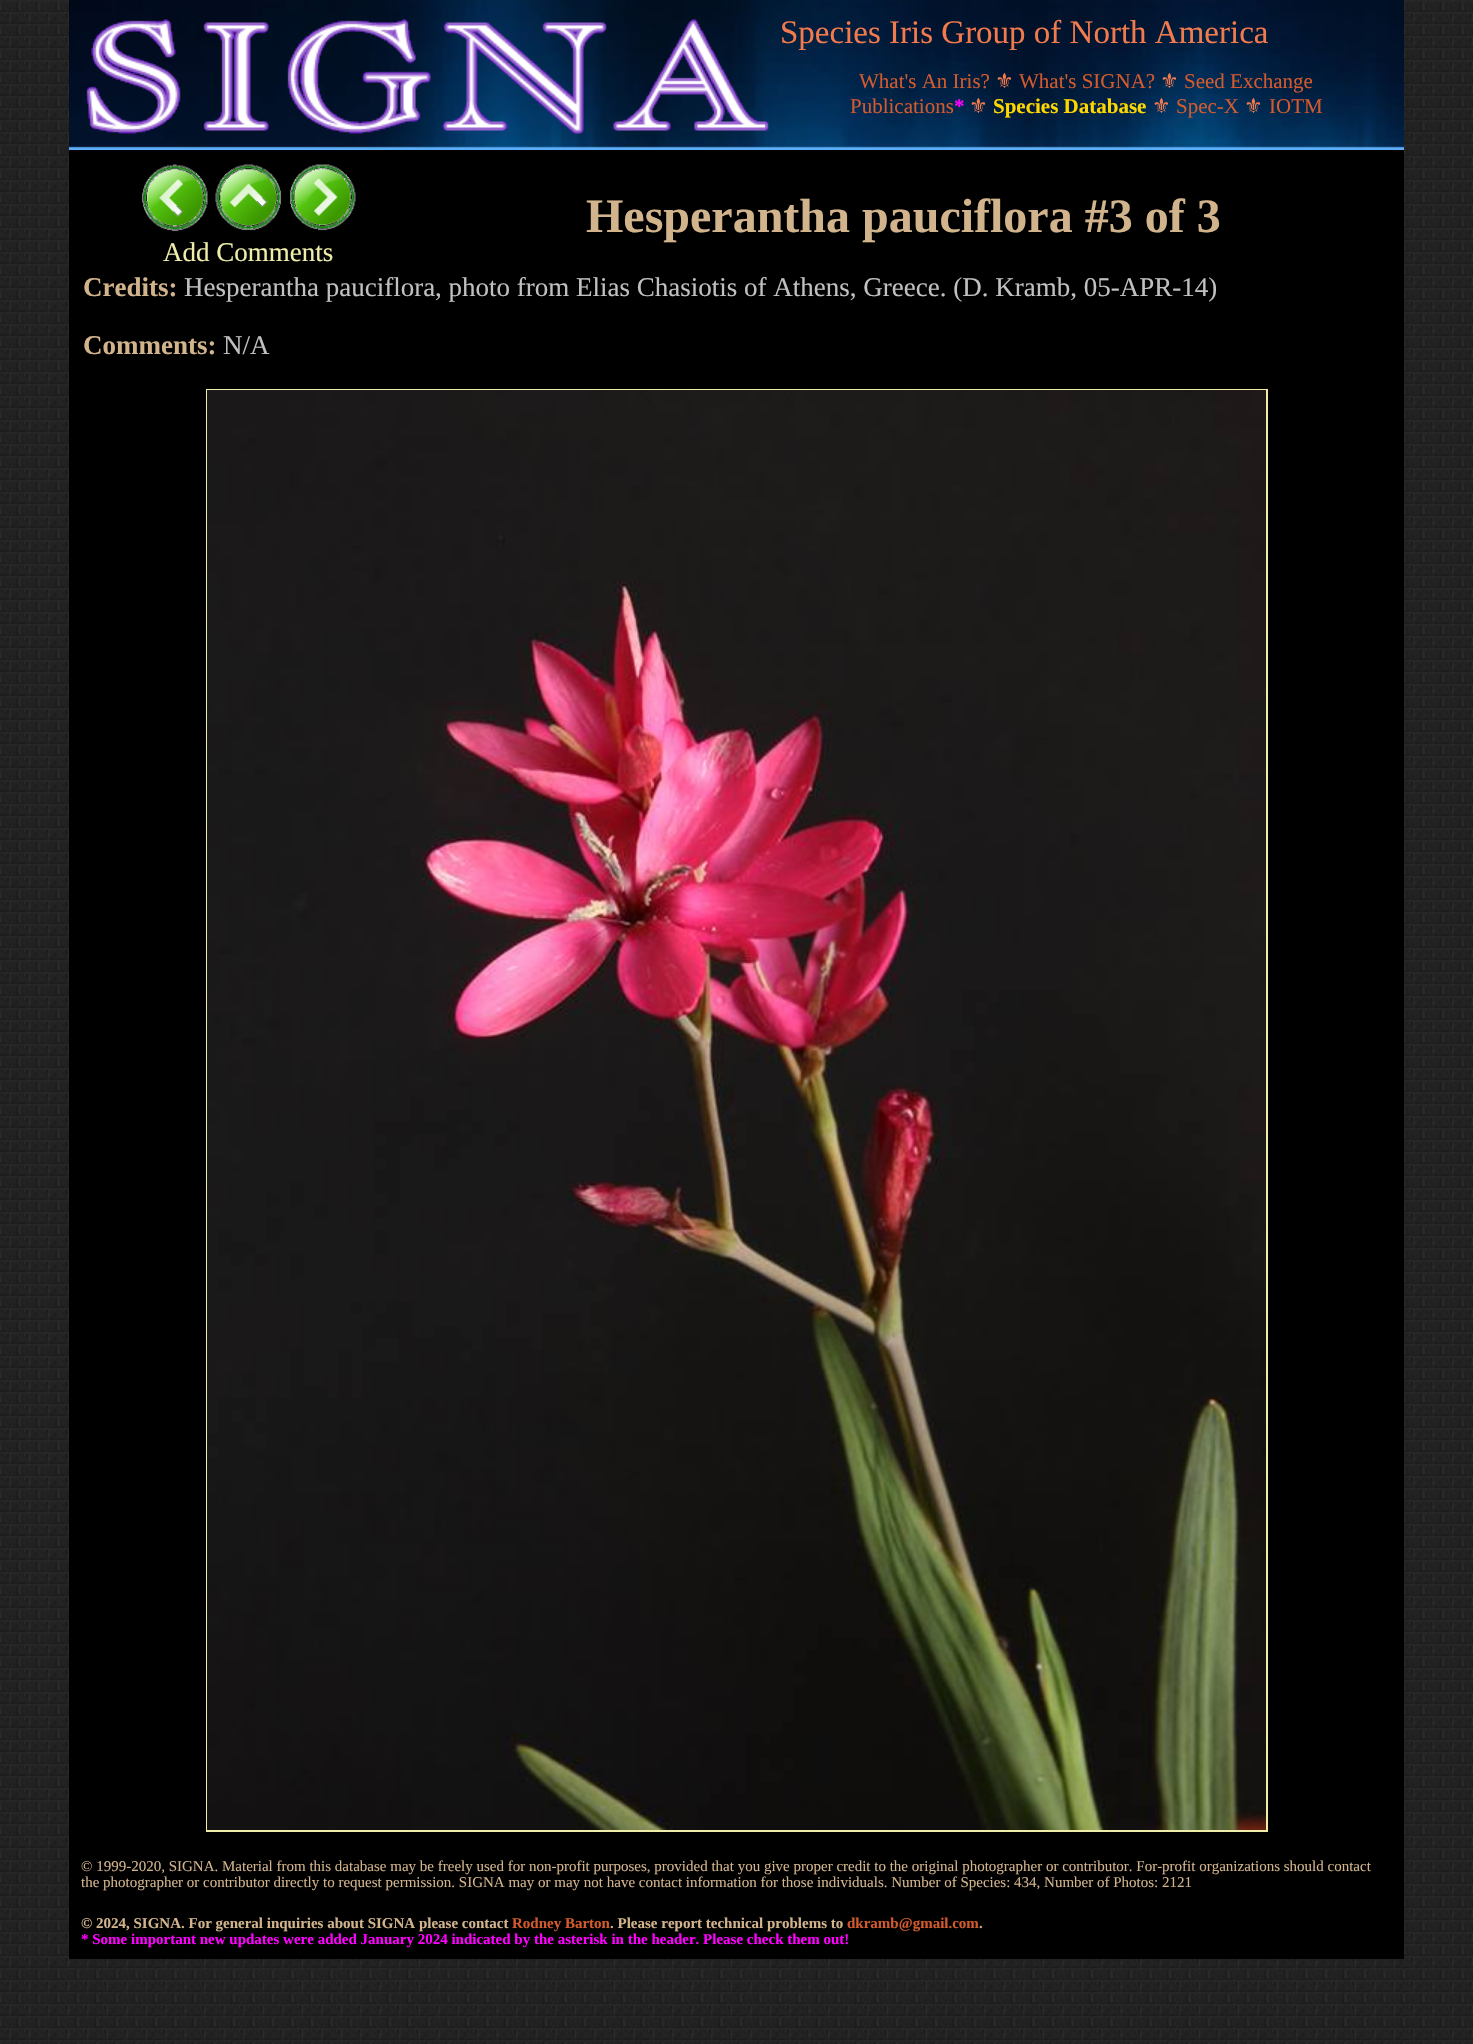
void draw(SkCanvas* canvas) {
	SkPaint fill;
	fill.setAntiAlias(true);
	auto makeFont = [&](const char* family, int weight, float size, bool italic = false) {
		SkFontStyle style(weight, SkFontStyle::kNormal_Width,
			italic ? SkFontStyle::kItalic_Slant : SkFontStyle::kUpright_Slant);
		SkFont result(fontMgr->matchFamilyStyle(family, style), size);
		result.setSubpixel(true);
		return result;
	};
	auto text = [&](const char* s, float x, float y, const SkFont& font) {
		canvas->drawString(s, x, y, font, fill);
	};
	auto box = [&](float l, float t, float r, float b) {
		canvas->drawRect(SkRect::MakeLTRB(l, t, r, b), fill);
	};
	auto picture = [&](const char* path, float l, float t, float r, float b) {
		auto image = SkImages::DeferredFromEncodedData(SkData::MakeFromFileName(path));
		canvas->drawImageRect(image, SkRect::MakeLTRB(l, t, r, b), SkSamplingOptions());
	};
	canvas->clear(0xFFFFFFFF);
	picture("image0.png", 0, 0, 1473, 2044);
	picture("image1.png", 69, 0, 1404, 150);
	picture("image2.png", 86, 19, 769, 134);
	fill.setColor(0xFF000000);
	box(69, 150, 1404, 1959);
	picture("image3.png", 142, 164, 208, 231);
	picture("image4.png", 215, 164, 282, 231);
	picture("image5.png", 290, 164, 356, 231);
	fill.setStyle(SkPaint::kStroke_Style);
	fill.setStrokeWidth(2);
	fill.setColor(0xFFEEEEAA);
	canvas->drawRect(SkRect::MakeLTRB(207, 390, 1267, 1831), fill);
	picture("image6.png", 207, 390, 1266, 1830);
	auto font1 = makeFont("Liberation Serif", 400, 33);
	fill.setStyle(SkPaint::kFill_Style);
	fill.setColor(0xFFF37A4D);
	text("Species Iris Group of North America", 780, 43, font1);
	auto font2 = makeFont("Liberation Serif", 400, 21);
	fill.setColor(0xFFD35A2D);
	text("What's An Iris?", 859, 88, font2);
	auto font3 = makeFont("DejaVu Sans", 400, 21);
	fill.setColor(0xFFF37A4D);
	text("⚜", 995, 88, font3);
	fill.setColor(0xFFD35A2D);
	text("What's SIGNA?", 1019, 88, font2);
	fill.setColor(0xFFF37A4D);
	text("⚜", 1160, 88, font3);
	fill.setColor(0xFFD35A2D);
	text("Seed Exchange", 1184, 88, font2);
	text("Publications", 850, 113, font2);
	auto font4 = makeFont("Liberation Serif", 700, 21);
	fill.setColor(0xFFFF00FF);
	text("*", 954, 113, font4);
	fill.setColor(0xFFF37A4D);
	text("⚜", 969, 113, font3);
	fill.setColor(0xFFFFD700);
	text("Species Database", 993, 113, font4);
	fill.setColor(0xFFF37A4D);
	text("⚜", 1152, 113, font3);
	fill.setColor(0xFFD35A2D);
	text("Spec-X", 1176, 113, font2);
	fill.setColor(0xFFF37A4D);
	text("⚜", 1244, 113, font3);
	fill.setColor(0xFFD35A2D);
	text("IOTM", 1269, 113, font2);
	auto font5 = makeFont("Liberation Serif", 700, 48);
	fill.setColor(0xFFD2B48C);
	text("Hesperantha pauciflora #3 of 3", 586, 232, font5);
	auto font6 = makeFont("Liberation Serif", 400, 27);
	fill.setColor(0xFFEEEEAA);
	text("Add Comments", 163, 261, font6);
	auto font7 = makeFont("Liberation Serif", 700, 27);
	fill.setColor(0xFFD2B48C);
	text("Credits:", 83, 296, font7);
	fill.setColor(0xFFC0C0C0);
	text("Hesperantha pauciflora, photo from Elias Chasiotis of Athens, Greece. (D. Kramb, 05-APR-14)", 184, 296, font6);
	fill.setColor(0xFFD2B48C);
	text("Comments:", 83, 354, font7);
	fill.setColor(0xFFC0C0C0);
	text("N/A", 223, 354, font6);
	auto font8 = makeFont("Liberation Serif", 400, 15);
	fill.setColor(0xFFD2B48C);
	text("© 1999-2020, SIGNA. Material from this database may be freely used for non-profit purposes, provided that you give proper credit to the original photographer or contributor. For-profit organizations should contact", 81, 1871, font8);
	text("the photographer or contributor directly to request permission. SIGNA may or may not have contact information for those individuals. Number of Species: 434, Number of Photos: 2121", 81, 1887, font8);
	auto font9 = makeFont("Liberation Serif", 700, 15);
	text("© 2024, SIGNA. For general inquiries about SIGNA please contact", 81, 1928, font9);
	fill.setColor(0xFFD35A2D);
	text("Rodney Barton", 512, 1928, font9);
	fill.setColor(0xFFD2B48C);
	text(". Please report technical problems to", 610, 1928, font9);
	fill.setColor(0xFFD35A2D);
	text("dkramb@gmail.com", 847, 1928, font9);
	fill.setColor(0xFFD2B48C);
	text(".", 979, 1928, font9);
	fill.setColor(0xFFFF00FF);
	text("* Some important new updates were added January 2024 indicated by the asterisk in the header. Please check them out!", 81, 1944, font9);
}
